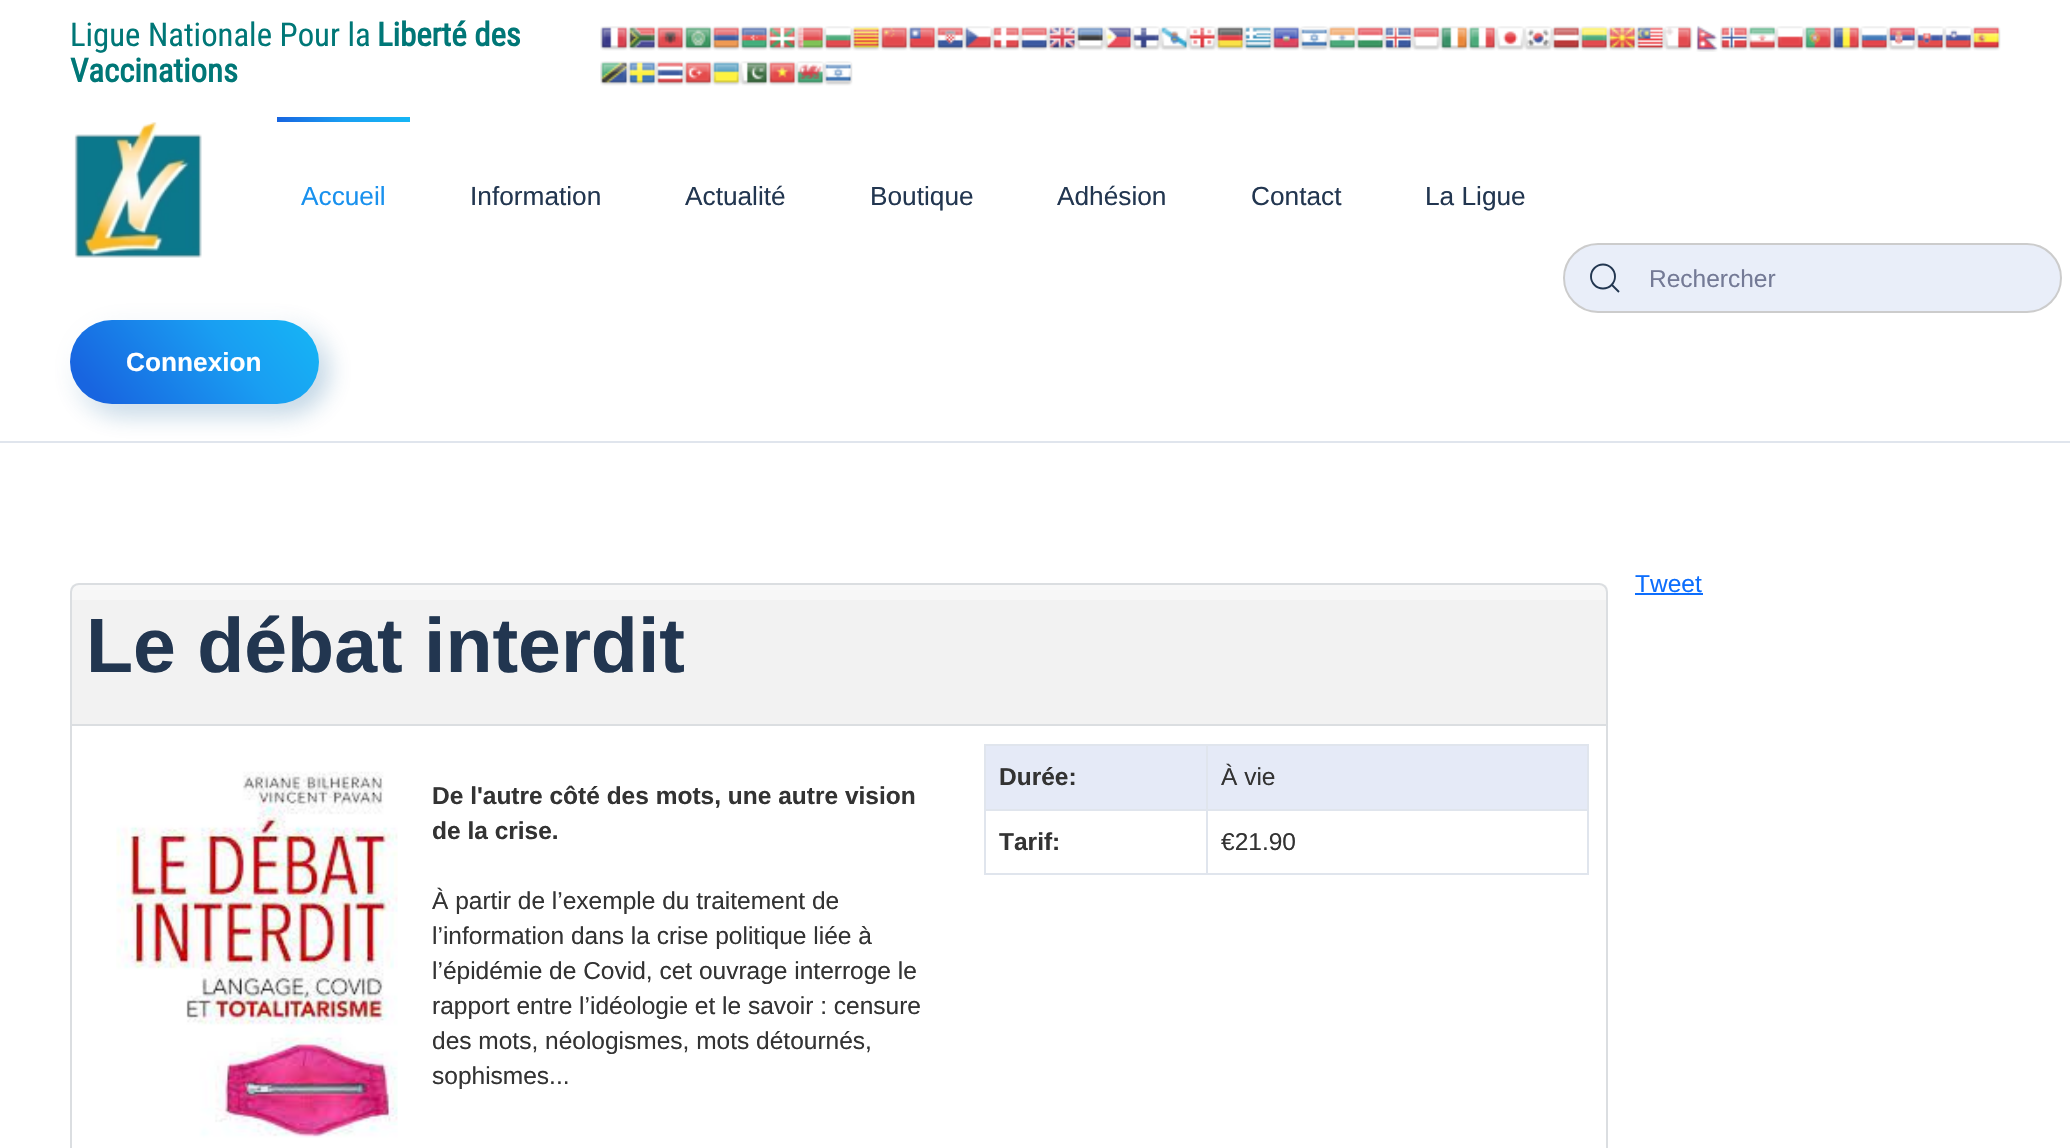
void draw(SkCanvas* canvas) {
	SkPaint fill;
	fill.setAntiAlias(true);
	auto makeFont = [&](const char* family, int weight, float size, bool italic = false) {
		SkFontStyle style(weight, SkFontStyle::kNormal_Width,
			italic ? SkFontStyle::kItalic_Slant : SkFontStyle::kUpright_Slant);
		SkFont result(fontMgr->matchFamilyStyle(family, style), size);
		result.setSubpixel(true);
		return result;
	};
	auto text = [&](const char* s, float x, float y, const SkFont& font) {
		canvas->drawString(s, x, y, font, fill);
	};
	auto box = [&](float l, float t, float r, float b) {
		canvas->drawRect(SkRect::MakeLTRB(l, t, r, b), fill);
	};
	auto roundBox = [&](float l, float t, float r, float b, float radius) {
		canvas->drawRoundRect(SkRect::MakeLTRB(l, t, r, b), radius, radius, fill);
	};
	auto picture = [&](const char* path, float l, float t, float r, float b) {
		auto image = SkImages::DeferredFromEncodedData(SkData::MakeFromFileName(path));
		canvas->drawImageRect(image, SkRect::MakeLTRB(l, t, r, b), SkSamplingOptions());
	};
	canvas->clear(0xFFFFFFFF);
	picture("image0.png", 600, 26, 629, 51);
	picture("image1.png", 628, 26, 657, 51);
	picture("image2.png", 656, 26, 685, 51);
	picture("image3.png", 684, 26, 713, 51);
	picture("image4.png", 712, 26, 741, 51);
	picture("image5.png", 740, 26, 769, 51);
	picture("image6.png", 768, 26, 797, 51);
	picture("image7.png", 796, 26, 825, 51);
	picture("image8.png", 824, 26, 853, 51);
	picture("image9.png", 852, 26, 881, 51);
	picture("image10.png", 880, 26, 909, 51);
	picture("image11.png", 908, 26, 937, 51);
	picture("image12.png", 936, 26, 965, 51);
	picture("image13.png", 964, 26, 993, 51);
	picture("image14.png", 992, 26, 1021, 51);
	picture("image15.png", 1020, 26, 1049, 51);
	picture("image16.png", 1048, 26, 1077, 51);
	picture("image17.png", 1076, 26, 1105, 51);
	picture("image18.png", 1104, 26, 1133, 51);
	picture("image19.png", 1132, 26, 1161, 51);
	picture("image20.png", 1160, 26, 1189, 51);
	picture("image21.png", 1188, 26, 1217, 51);
	picture("image22.png", 1216, 26, 1245, 51);
	picture("image23.png", 1244, 26, 1273, 51);
	picture("image24.png", 1272, 26, 1301, 51);
	picture("image25.png", 1300, 26, 1329, 51);
	picture("image26.png", 1328, 26, 1357, 51);
	picture("image27.png", 1356, 26, 1385, 51);
	picture("image28.png", 1384, 26, 1413, 51);
	picture("image29.png", 1412, 26, 1441, 51);
	picture("image30.png", 1440, 26, 1469, 51);
	picture("image31.png", 1468, 26, 1497, 51);
	picture("image32.png", 1496, 26, 1525, 51);
	picture("image33.png", 1524, 26, 1553, 51);
	picture("image34.png", 1552, 26, 1581, 51);
	picture("image35.png", 1580, 26, 1609, 51);
	picture("image36.png", 1608, 26, 1637, 51);
	picture("image37.png", 1636, 26, 1665, 51);
	picture("image38.png", 1664, 26, 1693, 51);
	picture("image39.png", 1696, 25, 1718, 52);
	picture("image40.png", 1720, 26, 1749, 51);
	picture("image41.png", 1748, 26, 1777, 51);
	picture("image42.png", 1776, 26, 1805, 51);
	picture("image43.png", 1804, 26, 1833, 51);
	picture("image44.png", 1832, 26, 1861, 51);
	picture("image45.png", 1860, 26, 1889, 51);
	picture("image46.png", 1888, 26, 1917, 51);
	picture("image47.png", 1916, 26, 1945, 51);
	picture("image48.png", 1944, 26, 1973, 51);
	picture("image49.png", 1972, 26, 2001, 51);
	picture("image50.png", 600, 61, 629, 86);
	picture("image51.png", 628, 61, 657, 86);
	picture("image52.png", 656, 61, 685, 86);
	picture("image53.png", 684, 61, 713, 86);
	picture("image54.png", 712, 61, 741, 86);
	picture("image55.png", 740, 61, 769, 86);
	picture("image56.png", 768, 61, 797, 86);
	picture("image57.png", 796, 61, 825, 86);
	picture("image58.png", 824, 61, 853, 86);
	fill.setColor(0xFFE0E5ED);
	box(0, 441, 2070, 443);
	picture("image59.png", 74, 122, 202, 258);
	{
		const SkColor colors[] = {0xFF1865E0, 0xFF199EF2, 0xFF16B6F5};
		const float stops[] = {0, 0.5f, 1};
		const SkPoint ends[] = {{277, 120}, {410, 120}};
		fill.setShader(SkGradientShader::MakeLinear(ends, colors, stops, 3, SkTileMode::kClamp));
		fill.setAlpha(255);
	}
	box(277, 117, 410, 122);
	fill.setShader(nullptr);
	fill.setColor(0x4D0B5996);
	fill.setMaskFilter(SkMaskFilter::MakeBlur(kNormal_SkBlurStyle, 13));
	canvas->drawRoundRect(SkRect::MakeLTRB(79, 329, 327, 413), 42, 42, fill);
	fill.setMaskFilter(nullptr);
	fill.setColor(0xE6FFFFFF);
	fill.setMaskFilter(SkMaskFilter::MakeBlur(kNormal_SkBlurStyle, 13));
	canvas->drawRoundRect(SkRect::MakeLTRB(61, 312, 310, 396), 42, 42, fill);
	fill.setMaskFilter(nullptr);
	{
		const SkColor colors[] = {0xFF1865E0, 0xFF199EF2, 0xFF16B6F5};
		const float stops[] = {0.5f, 0.8f, 1};
		const SkPoint ends[] = {{-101, 500}, {241, 224}};
		fill.setShader(SkGradientShader::MakeLinear(ends, colors, stops, 3, SkTileMode::kClamp));
		fill.setAlpha(255);
	}
	roundBox(70, 320, 319, 404, 42);
	fill.setShader(nullptr);
	fill.setColor(0xFFE9EEF9);
	canvas->drawRoundRect(SkRect::MakeLTRB(1564, 244, 2061, 312), 34, 34, fill);
	fill.setStyle(SkPaint::kStroke_Style);
	fill.setStrokeWidth(2);
	fill.setColor(0xFFCCCCCC);
	canvas->drawRoundRect(SkRect::MakeLTRB(1564, 244, 2061, 312), 34, 34, fill);
	fill.setStrokeWidth(1.9f);
	fill.setColor(0xFF223650);
	canvas->drawCircle(1603, 276.5f, 12, fill);
	canvas->drawPath(SkPathBuilder().moveTo(1612, 285).lineTo(1619, 292).close().detach(), fill);
	fill.setStyle(SkPaint::kFill_Style);
	fill.setColor(0xFF0D6EFD);
	box(1635, 593, 1703, 595);
	fill.setColor(0xFFF2F2F2);
	canvas->drawPath(SkPathBuilder().moveTo(79, 583).lineTo(1599, 583).cubicTo(1604, 583, 1608, 587, 1608, 592).lineTo(1608, 726).lineTo(70, 726).lineTo(70, 592).cubicTo(70, 587, 74, 583, 79, 583).close().detach(), fill);
	picture("image60.png", 70, 585, 1608, 600);
	fill.setStyle(SkPaint::kStroke_Style);
	fill.setStrokeWidth(2);
	fill.setColor(0xFFDBDEE1);
	canvas->drawPath(SkPathBuilder().moveTo(79, 584).lineTo(1599, 584).cubicTo(1603.5f, 584, 1607, 587.5f, 1607, 592).lineTo(1607, 725).lineTo(71, 725).lineTo(71, 592).cubicTo(71, 587.5f, 74.5f, 584, 79, 584).close().detach(), fill);
	fill.setStyle(SkPaint::kFill_Style);
	canvas->drawPath(SkPathBuilder(SkPathFillType::kEvenOdd).moveTo(70, 726).lineTo(1608, 726).lineTo(1608, 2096).cubicTo(1608, 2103, 1603, 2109, 1596, 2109).lineTo(82, 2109).cubicTo(75, 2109, 70, 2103, 70, 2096).close().moveTo(72, 726).lineTo(1606, 726).lineTo(1606, 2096).cubicTo(1606, 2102, 1602, 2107, 1596, 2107).lineTo(82, 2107).cubicTo(76, 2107, 72, 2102, 72, 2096).close().detach(), fill);
	picture("image61.png", 116, 771, 398, 1138);
	fill.setColor(0xFFE0E5ED);
	box(984, 744, 1589, 746);
	box(1587, 744, 1589, 875);
	box(984, 873, 1589, 875);
	fill.setColor(0xFFE5EAF7);
	box(986, 746, 1206, 809);
	box(1208, 746, 1587, 809);
	fill.setColor(0xFFE0E5ED);
	box(1206, 809, 1589, 811);
	box(1206, 809, 1208, 875);
	box(984, 809, 1208, 811);
	box(1206, 744, 1208, 810);
	box(984, 744, 986, 875);
	auto font1 = makeFont("Roboto Condensed", 400, 32.75f);
	fill.setColor(0xFF007777);
	text("Ligue Nationale Pour la", 70, 46, font1);
	auto font2 = makeFont("Roboto Condensed", 700, 32.75f);
	text("Liberté des", 377, 46, font2);
	text("Vaccinations", 70, 82, font2);
	auto font3 = makeFont("Liberation Sans", 400, 26.25f);
	fill.setColor(0xFF1991EE);
	text("Accueil", 301, 205, font3);
	fill.setColor(0xFF223650);
	text("Information", 470, 205, font3);
	text("Actualité", 685, 205, font3);
	text("Boutique", 870, 205, font3);
	text("Adhésion", 1057, 205, font3);
	text("Contact", 1251, 205, font3);
	text("La Ligue", 1425, 205, font3);
	auto font4 = makeFont("Liberation Sans", 700, 26.25f);
	fill.setColor(0xFFFFFFFF);
	text("Connexion", 126, 371, font4);
	auto font5 = makeFont("Liberation Sans", 400, 24.5f);
	fill.setColor(0xFF747A96);
	text("Rechercher", 1649, 287, font5);
	fill.setColor(0xFF0D6EFD);
	text("Tweet", 1635, 592, font5);
	auto font6 = makeFont("Liberation Sans", 700, 77);
	fill.setColor(0xFF223650);
	text("Le débat interdit", 86, 672, font6);
	auto font7 = makeFont("Liberation Sans", 700, 24.5f);
	fill.setColor(0xFF333333);
	text("De l'autre côté des mots, une autre vision", 432, 804, font7);
	text("de la crise.", 432, 839, font7);
	text("À partir de l’exemple du traitement de", 432, 909, font5);
	text("l’information dans la crise politique liée à", 432, 944, font5);
	text("l’épidémie de Covid, cet ouvrage interroge le", 432, 979, font5);
	text("rapport entre l’idéologie et le savoir : censure", 432, 1014, font5);
	text("des mots, néologismes, mots détournés,", 432, 1049, font5);
	text("sophismes...", 432, 1084, font5);
	text("Durée:", 999, 785, font7);
	text("À vie", 1221, 785, font5);
	text("Tarif:", 999, 850, font7);
	text("€21.90", 1221, 850, font5);
}
